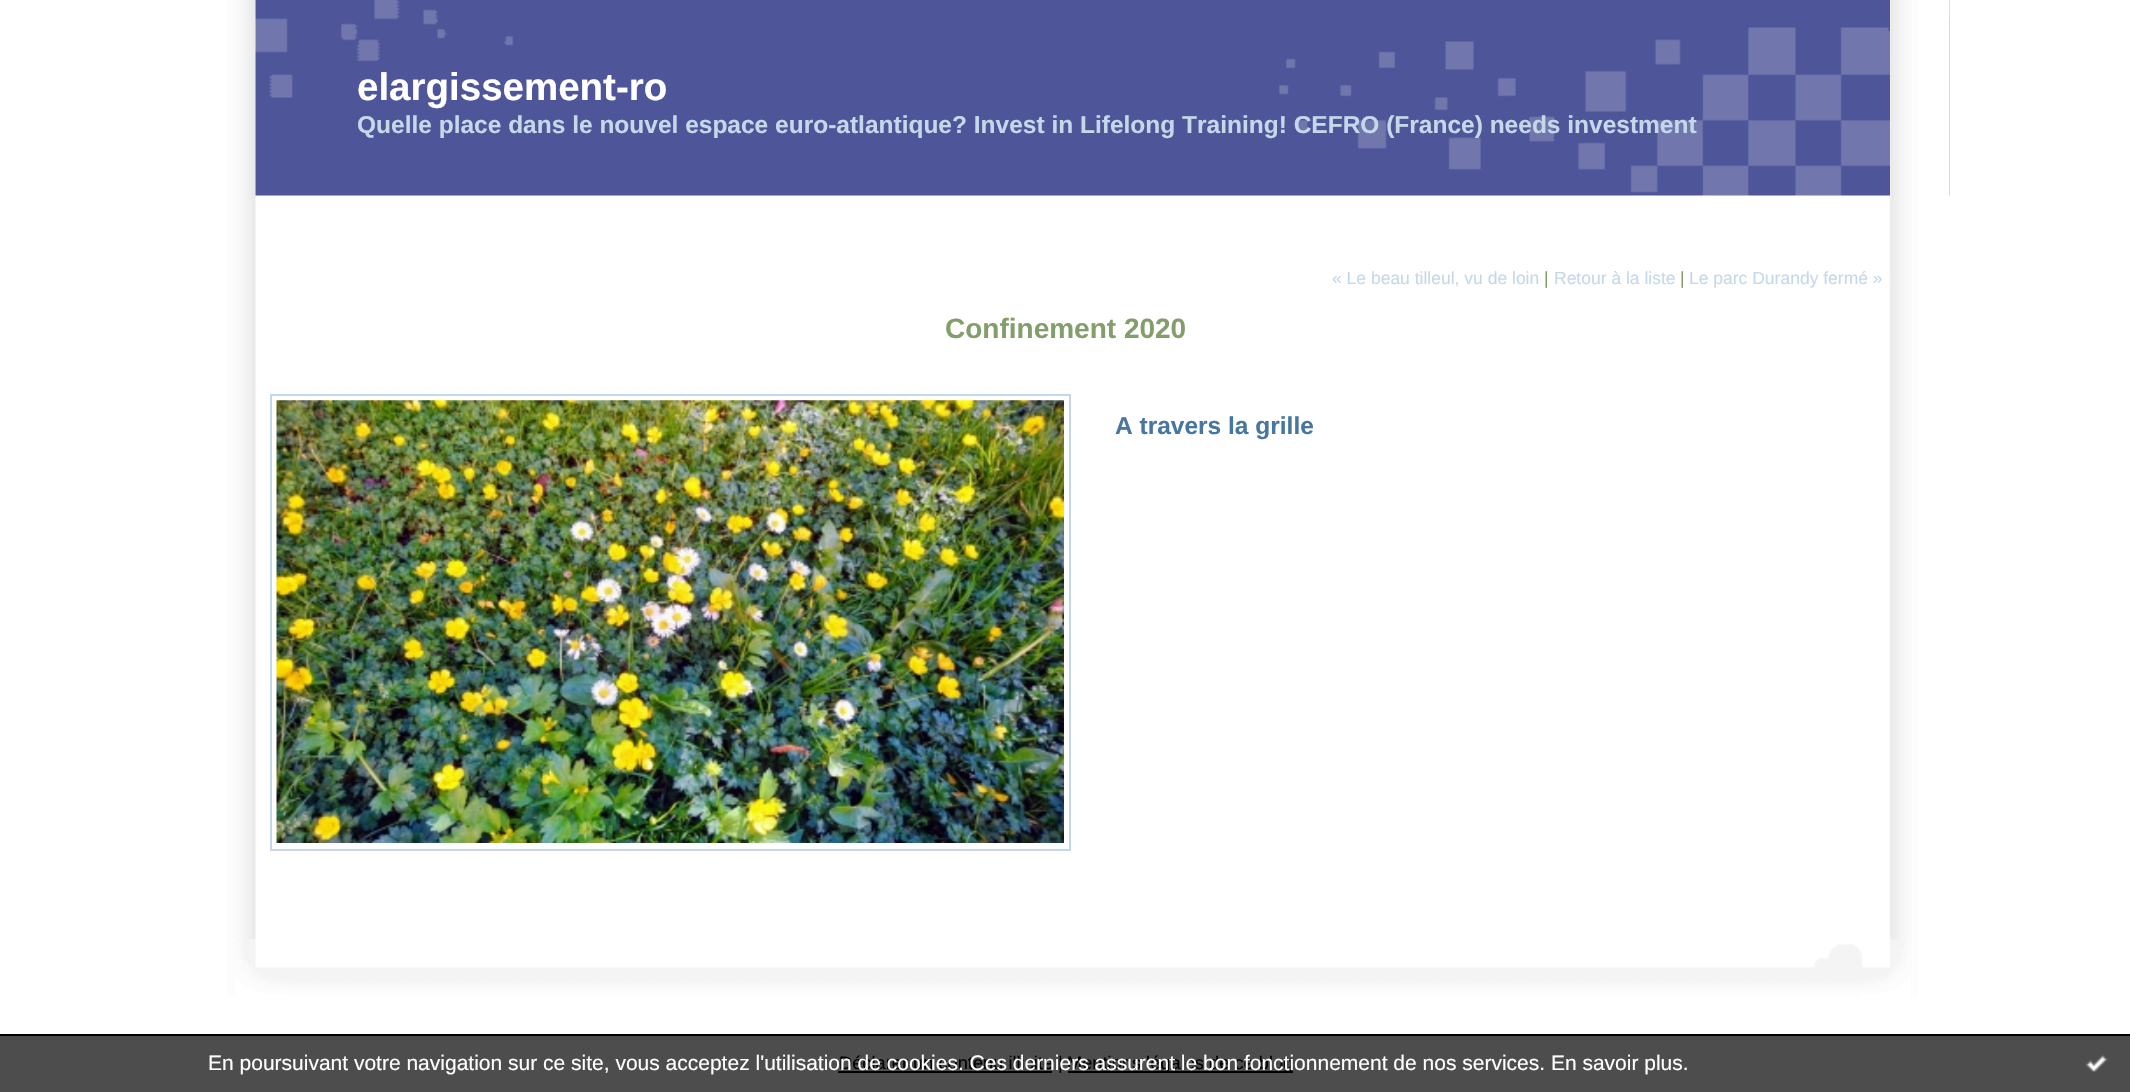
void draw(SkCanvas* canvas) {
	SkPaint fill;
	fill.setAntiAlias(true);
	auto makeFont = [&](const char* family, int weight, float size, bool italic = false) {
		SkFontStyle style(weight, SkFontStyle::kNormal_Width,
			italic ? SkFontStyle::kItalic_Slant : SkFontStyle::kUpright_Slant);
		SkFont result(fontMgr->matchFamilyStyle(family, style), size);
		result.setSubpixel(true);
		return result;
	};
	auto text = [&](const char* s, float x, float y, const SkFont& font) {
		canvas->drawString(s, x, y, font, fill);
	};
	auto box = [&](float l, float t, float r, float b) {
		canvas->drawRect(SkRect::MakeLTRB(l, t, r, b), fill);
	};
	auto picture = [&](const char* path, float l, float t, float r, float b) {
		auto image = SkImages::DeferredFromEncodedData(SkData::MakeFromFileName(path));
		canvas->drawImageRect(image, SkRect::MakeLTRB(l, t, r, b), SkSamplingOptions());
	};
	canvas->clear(0xFFFFFFFF);
	fill.setColor(0xFF4D4D4D);
	box(0, 1036, 2130, 1092);
	picture("image0.png", 1949, 0, 1950, 196);
	picture("image1.png", 182, 0, 1950, 997);
	picture("image2.png", 235, 939, 1911, 997);
	picture("image3.png", 255, 0, 1890, 196);
	fill.setStyle(SkPaint::kStroke_Style);
	fill.setStrokeWidth(2);
	fill.setColor(0xFFC5D8E9);
	canvas->drawRect(SkRect::MakeLTRB(271, 395, 1070, 850), fill);
	picture("image4.png", 276, 400, 1064, 843);
	picture("image5.png", 2085, 1054, 2108, 1073);
	fill.setStyle(SkPaint::kFill_Style);
	fill.setColor(0xFF000000);
	box(0, 1034, 2130, 1036);
	box(838, 1071, 1052, 1073);
	box(1068, 1071, 1293, 1073);
	auto font1 = makeFont("Liberation Sans", 700, 38.5f);
	fill.setColor(0xFFFFFFFF);
	text("elargissement-ro", 357, 100, font1);
	auto font2 = makeFont("Liberation Sans", 700, 24.5f);
	fill.setColor(0xFFC5D8E9);
	text("Quelle place dans le nouvel espace euro-atlantique? Invest in Lifelong Training! CEFRO (France) needs investment", 357, 133, font2);
	auto font3 = makeFont("Liberation Sans", 400, 17.5f);
	text("« Le beau tilleul, vu de loin", 1332, 284, font3);
	fill.setColor(0xFF839E6B);
	text("|", 1544, 284, font3);
	fill.setColor(0xFFC5D8E9);
	text("Retour à la liste", 1554, 284, font3);
	fill.setColor(0xFF839E6B);
	text("|", 1680, 284, font3);
	fill.setColor(0xFFC5D8E9);
	text("Le parc Durandy fermé »", 1689, 284, font3);
	auto font4 = makeFont("Liberation Sans", 700, 28);
	fill.setColor(0xFF839E6B);
	text("Confinement 2020", 945, 338, font4);
	fill.setColor(0xFF4776A0);
	text("A travers la grille", 1115, 434, font2);
	auto font5 = makeFont("Liberation Sans", 400, 18.25f);
	fill.setColor(0xFF000000);
	text("Déclarer un contenu illicite |", 839, 1069, font5);
	text("Mentions légales de ce blog", 1067, 1069, font5);
	auto font6 = makeFont("Liberation Sans", 400, 21);
	fill.setColor(0xFFFFFFFF);
	text("En poursuivant votre navigation sur ce site, vous acceptez l'utilisation de cookies. Ces derniers assurent le bon fonctionnement de nos services. En savoir plus.", 208, 1070, font6);
}
